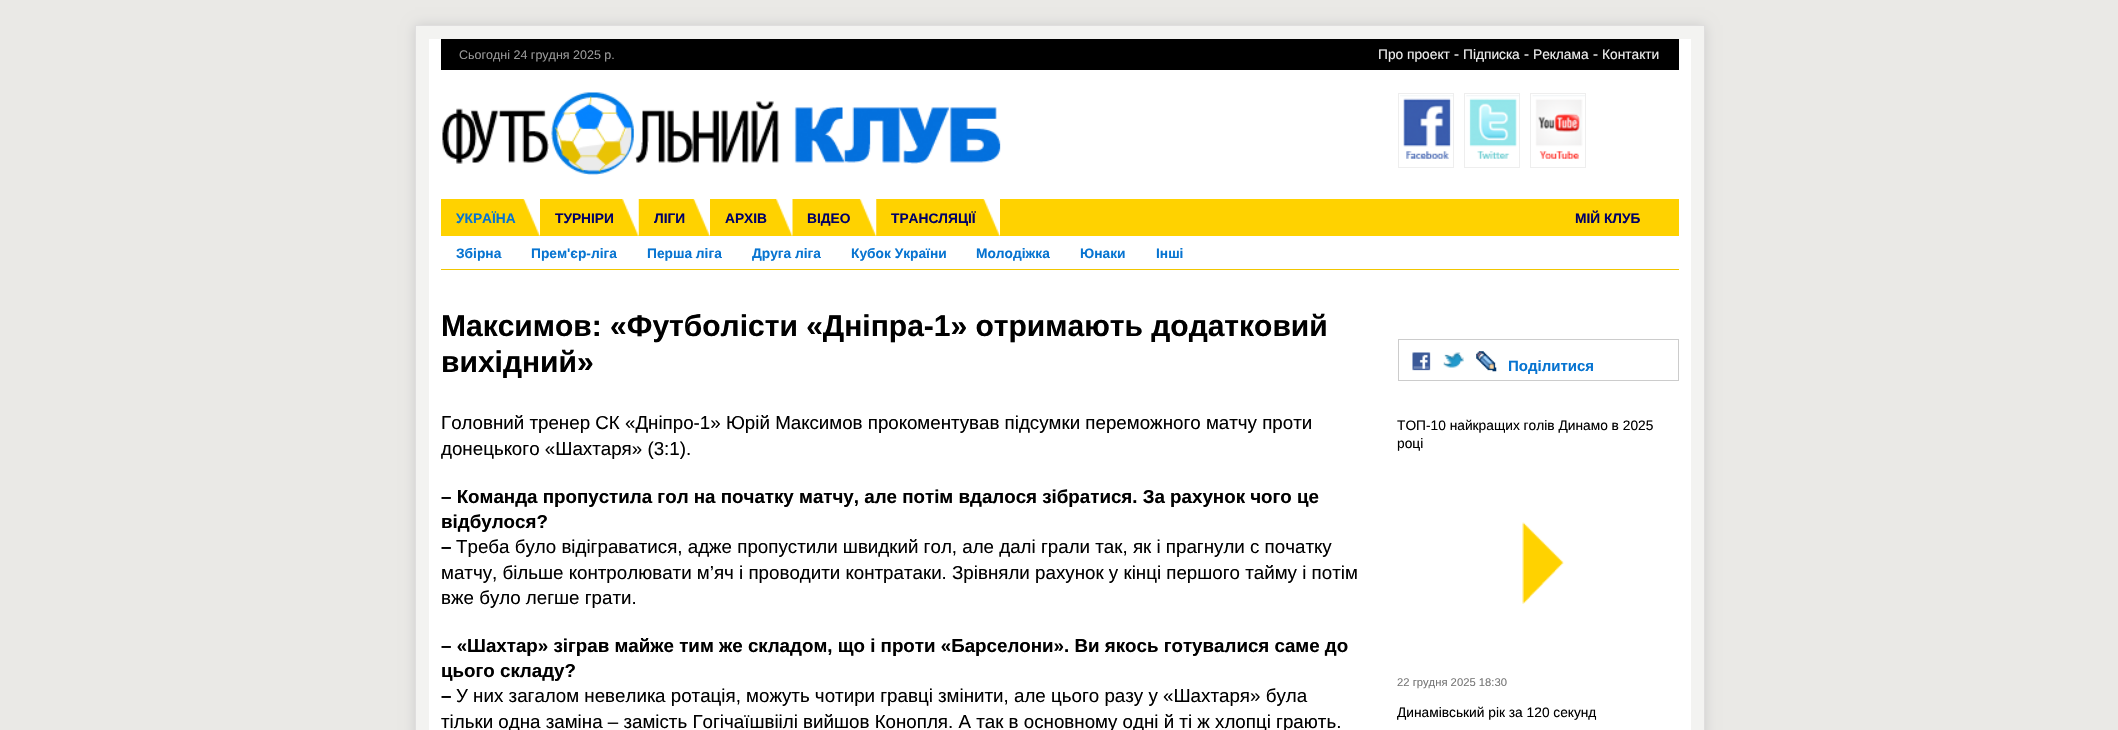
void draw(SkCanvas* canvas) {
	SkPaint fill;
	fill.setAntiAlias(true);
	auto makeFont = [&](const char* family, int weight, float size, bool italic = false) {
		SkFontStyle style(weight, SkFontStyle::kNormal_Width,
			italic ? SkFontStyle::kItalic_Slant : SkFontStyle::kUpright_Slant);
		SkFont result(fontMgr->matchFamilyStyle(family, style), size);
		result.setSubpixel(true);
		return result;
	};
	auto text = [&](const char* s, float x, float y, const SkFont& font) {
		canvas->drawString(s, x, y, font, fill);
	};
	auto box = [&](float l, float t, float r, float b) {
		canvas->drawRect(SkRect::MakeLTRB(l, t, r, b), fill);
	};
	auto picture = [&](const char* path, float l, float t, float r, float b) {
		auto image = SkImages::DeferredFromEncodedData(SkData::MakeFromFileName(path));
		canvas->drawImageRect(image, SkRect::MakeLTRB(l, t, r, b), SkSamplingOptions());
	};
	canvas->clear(0xFFEAE9E6);
	fill.setColor(0xFFCCCCCC);
	fill.setMaskFilter(SkMaskFilter::MakeBlur(kNormal_SkBlurStyle, 6));
	canvas->drawRect(SkRect::MakeLTRB(415, 25, 1705, 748), fill);
	fill.setMaskFilter(nullptr);
	fill.setColor(0xFFF3F3F1);
	canvas->drawRect(SkRect::MakeLTRB(415.5f, 25.5f, 1704.5f, 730.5f), fill);
	fill.setStyle(SkPaint::kStroke_Style);
	fill.setStrokeWidth(1);
	fill.setColor(0xFFDFDEDE);
	canvas->drawRect(SkRect::MakeLTRB(415.5f, 25.5f, 1704.5f, 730.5f), fill);
	fill.setStyle(SkPaint::kFill_Style);
	fill.setColor(0xFFFFFFFF);
	box(429, 39, 1691, 730);
	fill.setColor(0xFF000000);
	box(441, 39, 1679, 70);
	picture("image0.png", 442, 92, 1001, 175);
	picture("image1.png", 1400, 95, 1453, 164);
	fill.setStyle(SkPaint::kStroke_Style);
	fill.setColor(0xFFEEEEEE);
	canvas->drawRect(SkRect::MakeLTRB(1398.5f, 93.5f, 1453.5f, 167.5f), fill);
	picture("image2.png", 1466, 95, 1519, 159);
	canvas->drawRect(SkRect::MakeLTRB(1464.5f, 93.5f, 1519.5f, 167.5f), fill);
	picture("image3.png", 1532, 95, 1585, 159);
	canvas->drawRect(SkRect::MakeLTRB(1530.5f, 93.5f, 1585.5f, 167.5f), fill);
	fill.setStyle(SkPaint::kFill_Style);
	fill.setColor(0xFFFFD200);
	box(441, 199, 1679, 236);
	picture("image4.png", 523, 199, 540, 236);
	picture("image5.png", 622, 199, 639, 236);
	picture("image6.png", 693, 199, 710, 236);
	picture("image7.png", 776, 199, 793, 236);
	picture("image8.png", 859, 199, 877, 236);
	picture("image6.png", 983, 199, 1000, 236);
	fill.setColor(0xFFF1C600);
	box(441, 269, 1679, 270);
	fill.setStyle(SkPaint::kStroke_Style);
	fill.setColor(0xFFCCCCCC);
	canvas->drawRect(SkRect::MakeLTRB(1398.5f, 339.5f, 1678.5f, 380.5f), fill);
	picture("image9.png", 1412, 352, 1431, 371);
	picture("image10.png", 1443, 352, 1464, 368);
	picture("image11.png", 1476, 351, 1497, 372);
	picture("image12.png", 1522, 522, 1564, 604);
	auto font1 = makeFont("Liberation Sans", 400, 12.5f);
	fill.setStyle(SkPaint::kFill_Style);
	fill.setColor(0xFF999999);
	text("Сьогодні 24 грудня 2025 р.", 459, 59, font1);
	auto font2 = makeFont("Liberation Sans", 400, 13.75f);
	fill.setColor(0xFFEEEEEE);
	text("Про проект", 1378, 59, font2);
	auto font3 = makeFont("Liberation Sans", 400, 15);
	text("-", 1454, 59, font3);
	text("Підписка", 1463, 59, font2);
	text("-", 1524, 59, font3);
	text("Реклама", 1533, 59, font2);
	text("-", 1593, 59, font3);
	text("Контакти", 1602, 59, font2);
	auto font4 = makeFont("Liberation Sans", 700, 13.75f);
	fill.setColor(0xFF0774D1);
	text("УКРАЇНА", 456, 223, font4);
	fill.setColor(0xFF000066);
	text("ТУРНІРИ", 555, 223, font4);
	text("ЛІГИ", 654, 223, font4);
	text("АРХІВ", 725, 223, font4);
	text("ВІДЕО", 807, 223, font4);
	text("ТРАНСЛЯЦІЇ", 891, 223, font4);
	text("МІЙ КЛУБ", 1575, 223, font4);
	fill.setColor(0xFF0774D1);
	text("Збірна", 456, 258, font4);
	text("Прем'єр-ліга", 531, 258, font4);
	text("Перша ліга", 647, 258, font4);
	text("Друга ліга", 752, 258, font4);
	text("Кубок України", 851, 258, font4);
	text("Молодіжка", 976, 258, font4);
	text("Юнаки", 1080, 258, font4);
	text("Інші", 1156, 258, font4);
	auto font5 = makeFont("Liberation Sans", 700, 30);
	fill.setColor(0xFF000000);
	text("Максимов: «Футболісти «Дніпра-1» отримають додатковий", 441, 336, font5);
	text("вихідний»", 441, 372, font5);
	auto font6 = makeFont("Liberation Sans", 400, 18.75f);
	text("Головний тренер СК «Дніпро-1» Юрій Максимов прокоментував підсумки переможного матчу проти", 441, 429, font6);
	text("донецького «Шахтаря» (3:1).", 441, 455, font6);
	auto font7 = makeFont("Liberation Sans", 700, 18.75f);
	text("– Команда пропустила гол на початку матчу, але потім вдалося зібратися. За рахунок чого це", 441, 503, font7);
	text("відбулося?", 441, 528, font7);
	text("–", 441, 553, font7);
	text("Треба було відіграватися, адже пропустили швидкий гол, але далі грали так, як і прагнули с початку", 456, 553, font6);
	text("матчу, більше контролювати м’яч і проводити контратаки. Зрівняли рахунок у кінці першого тайму і потім", 441, 579, font6);
	text("вже було легше грати.", 441, 604, font6);
	text("– «Шахтар» зіграв майже тим же складом, що і проти «Барселони». Ви якось готувалися саме до", 441, 652, font7);
	text("цього складу?", 441, 677, font7);
	text("–", 441, 702, font7);
	text("У них загалом невелика ротація, можуть чотири гравці змінити, але цього разу у «Шахтаря» була", 456, 702, font6);
	text("тільки одна заміна – замість Гогічаїшвіілі вийшов Конопля. А так в основному одні й ті ж хлопці грають.", 441, 728, font6);
	auto font8 = makeFont("Liberation Sans", 700, 15);
	fill.setColor(0xFF0774D1);
	text("Поділитися", 1508, 371, font8);
	fill.setColor(0xFF000000);
	text("ТОП-10 найкращих голів Динамо в 2025", 1397, 430, font2);
	text("році", 1397, 448, font2);
	auto font9 = makeFont("Liberation Sans", 400, 11.25f);
	fill.setColor(0xFF777777);
	text("22 грудня 2025 18:30", 1397, 686, font9);
	fill.setColor(0xFF000000);
	text("Динамівський рік за 120 секунд", 1397, 717, font2);
}
